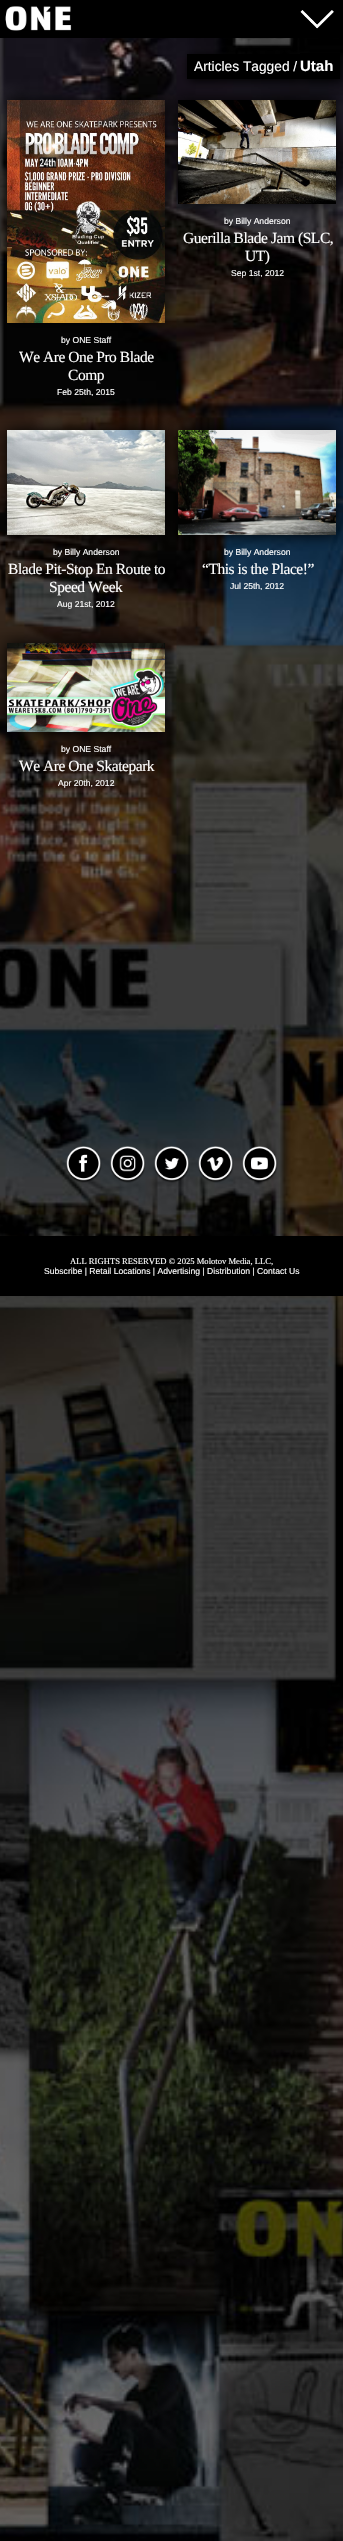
void draw(SkCanvas* canvas) {
	SkPaint fill;
	fill.setAntiAlias(true);
	auto makeFont = [&](const char* family, int weight, float size, bool italic = false) {
		SkFontStyle style(weight, SkFontStyle::kNormal_Width,
			italic ? SkFontStyle::kItalic_Slant : SkFontStyle::kUpright_Slant);
		SkFont result(fontMgr->matchFamilyStyle(family, style), size);
		result.setSubpixel(true);
		return result;
	};
	auto text = [&](const char* s, float x, float y, const SkFont& font) {
		canvas->drawString(s, x, y, font, fill);
	};
	auto spacedText = [&](const char* s, float x, float y, const SkFont& font, const SkPaint& ink, float letter, float word) {
		std::vector<SkGlyphID> glyphs(font.countText(s, strlen(s), SkTextEncoding::kUTF8));
		std::vector<float> xs(glyphs.size());
		font.textToGlyphs(s, strlen(s), SkTextEncoding::kUTF8, glyphs);
		font.getXPos(glyphs, xs, x);
		float extra = 0;
		for (size_t i = 0; i < glyphs.size(); i++) {
			xs[i] += extra;
			extra += letter + word * (glyphs[i] == font.unicharToGlyph(' '));
		}
		canvas->drawTextBlob(SkTextBlob::MakeFromPosHGlyphs(glyphs, xs, y, font), 0, 0, ink);
	};
	auto box = [&](float l, float t, float r, float b) {
		canvas->drawRect(SkRect::MakeLTRB(l, t, r, b), fill);
	};
	auto picture = [&](const char* path, float l, float t, float r, float b) {
		auto image = SkImages::DeferredFromEncodedData(SkData::MakeFromFileName(path));
		canvas->drawImageRect(image, SkRect::MakeLTRB(l, t, r, b), SkSamplingOptions());
	};
	canvas->clear(0xFFFFFFFF);
	fill.setColor(0xFF000000);
	box(0, 0, 343, 38);
	picture("image0.png", 5, 6, 72, 31);
	picture("image1.png", 300, 10, 334, 29);
	picture("image2.png", 0, 38, 343, 2541);
	fill.setMaskFilter(SkMaskFilter::MakeBlur(kNormal_SkBlurStyle, 5));
	canvas->drawRect(SkRect::MakeLTRB(189, 56, 302, 81), fill);
	fill.setMaskFilter(nullptr);
	fill.setMaskFilter(SkMaskFilter::MakeBlur(kNormal_SkBlurStyle, 7.5f));
	canvas->drawRect(SkRect::MakeLTRB(7, 100, 165, 323), fill);
	fill.setMaskFilter(nullptr);
	picture("image4.png", 7, 100, 165, 323);
	fill.setMaskFilter(SkMaskFilter::MakeBlur(kNormal_SkBlurStyle, 7.5f));
	canvas->drawRect(SkRect::MakeLTRB(178, 100, 336, 204), fill);
	fill.setMaskFilter(nullptr);
	box(187, 54, 300, 79);
	fill.setMaskFilter(SkMaskFilter::MakeBlur(kNormal_SkBlurStyle, 5));
	canvas->drawRect(SkRect::MakeLTRB(302, 55, 342, 81), fill);
	fill.setMaskFilter(nullptr);
	box(300, 53, 340, 79);
	picture("image3.png", 178, 100, 336, 204);
	fill.setMaskFilter(SkMaskFilter::MakeBlur(kNormal_SkBlurStyle, 7.5f));
	canvas->drawRect(SkRect::MakeLTRB(7, 430, 165, 535), fill);
	fill.setMaskFilter(nullptr);
	picture("image5.png", 7, 430, 165, 535);
	fill.setMaskFilter(SkMaskFilter::MakeBlur(kNormal_SkBlurStyle, 7.5f));
	canvas->drawRect(SkRect::MakeLTRB(178, 430, 336, 535), fill);
	fill.setMaskFilter(nullptr);
	picture("image6.png", 178, 430, 336, 535);
	fill.setMaskFilter(SkMaskFilter::MakeBlur(kNormal_SkBlurStyle, 7.5f));
	canvas->drawRect(SkRect::MakeLTRB(7, 643, 165, 732), fill);
	fill.setMaskFilter(nullptr);
	picture("image7.png", 7, 643, 165, 732);
	picture("image8.png", 66, 1146, 102, 1183);
	picture("image9.png", 110, 1146, 146, 1183);
	picture("image10.png", 154, 1146, 190, 1183);
	picture("image11.png", 198, 1146, 234, 1183);
	picture("image12.png", 242, 1146, 278, 1183);
	box(0, 1236, 343, 1296);
	auto font1 = makeFont("Liberation Sans", 400, 13.75f);
	fill.setColor(0xFFFFFFFF);
	text("Articles Tagged /", 194, 71, font1);
	auto font2 = makeFont("Liberation Sans", 700, 15);
	text("Utah", 300, 71, font2);
	auto font3 = makeFont("Liberation Sans", 400, 8.6f);
	text("by Billy Anderson", 224, 224, font3);
	auto font4 = makeFont("Liberation Serif", 400, 15.5f);
	spacedText("Guerilla Blade Jam (SLC,", 183, 243, font4, fill, -0.45f, 0);
	spacedText("UT)", 245, 261, font4, fill, -0.45f, 0);
	text("Sep 1st, 2012", 231, 276, font3);
	text("by ONE Staff", 61, 343, font3);
	spacedText("We Are One Pro Blade", 19, 362, font4, fill, -0.45f, 0);
	spacedText("Comp", 68, 380, font4, fill, -0.45f, 0);
	text("Feb 25th, 2015", 57, 395, font3);
	text("by Billy Anderson", 53, 555, font3);
	spacedText("Blade Pit-Stop En Route to", 8, 574, font4, fill, -0.45f, 0);
	spacedText("Speed Week", 49, 592, font4, fill, -0.45f, 0);
	text("Aug 21st, 2012", 57, 607, font3);
	text("by Billy Anderson", 224, 555, font3);
	spacedText("“This is the Place!”", 202, 574, font4, fill, -0.45f, 0);
	text("Jul 25th, 2012", 230, 589, font3);
	text("by ONE Staff", 61, 752, font3);
	spacedText("We Are One Skatepark", 19, 771, font4, fill, -0.45f, 0);
	text("Apr 20th, 2012", 58, 786, font3);
	auto font5 = makeFont("Liberation Serif", 400, 8.6f);
	text("ALL RIGHTS RESERVED © 2025 Molotov Media, LLC,", 70, 1264, font5);
	text("Subscribe | Retail Locations | Advertising | Distribution | Contact Us", 44, 1274, font3);
}
